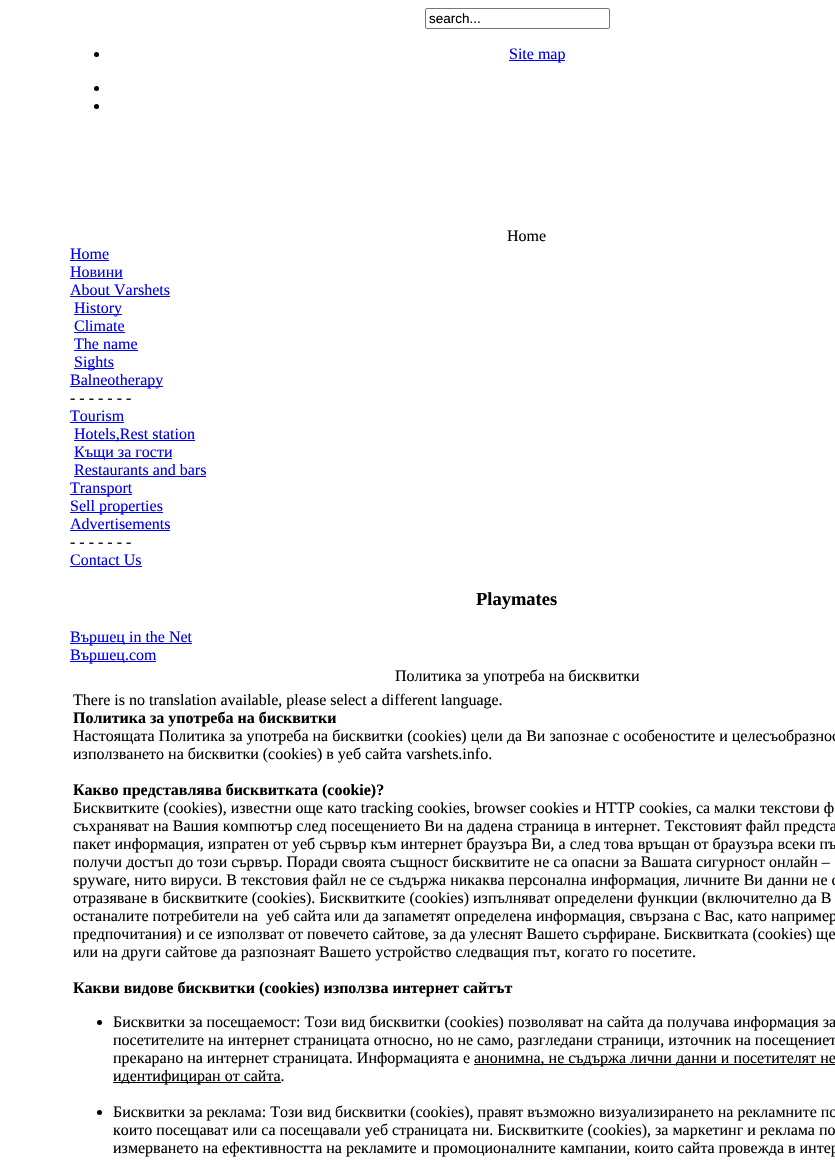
void draw(SkCanvas* canvas) {
	SkPaint fill;
	fill.setAntiAlias(true);
	auto makeFont = [&](const char* family, int weight, float size, bool italic = false) {
		SkFontStyle style(weight, SkFontStyle::kNormal_Width,
			italic ? SkFontStyle::kItalic_Slant : SkFontStyle::kUpright_Slant);
		SkFont result(fontMgr->matchFamilyStyle(family, style), size);
		result.setSubpixel(true);
		return result;
	};
	auto text = [&](const char* s, float x, float y, const SkFont& font) {
		canvas->drawString(s, x, y, font, fill);
	};
	auto box = [&](float l, float t, float r, float b) {
		canvas->drawRect(SkRect::MakeLTRB(l, t, r, b), fill);
	};
	canvas->clear(0xFFFFFFFF);
	fill.setStyle(SkPaint::kStroke_Style);
	fill.setStrokeWidth(1);
	fill.setColor(0xFF767676);
	canvas->drawRoundRect(SkRect::MakeLTRB(425.5f, 8.5f, 609.5f, 28.5f), 1.5f, 1.5f, fill);
	fill.setStyle(SkPaint::kFill_Style);
	fill.setColor(0xFF000000);
	canvas->drawCircle(96.5f, 54.5f, 2.5f, fill);
	fill.setColor(0xFF0000EE);
	box(509, 60, 565, 61);
	fill.setColor(0xFF000000);
	canvas->drawCircle(96.5f, 88.5f, 2.5f, fill);
	canvas->drawCircle(96.5f, 106.5f, 2.5f, fill);
	fill.setColor(0xFF0000EE);
	box(70, 260, 109, 261);
	box(70, 278, 123, 279);
	box(70, 296, 170, 297);
	box(74, 314, 122, 315);
	box(74, 332, 125, 333);
	box(74, 350, 138, 351);
	box(74, 368, 114, 369);
	box(70, 386, 163, 387);
	box(70, 422, 124, 423);
	box(74, 440, 195, 441);
	box(74, 458, 172, 459);
	box(74, 476, 206, 477);
	box(70, 494, 132, 495);
	box(70, 512, 163, 513);
	box(70, 530, 170, 531);
	box(70, 566, 142, 567);
	box(70, 643, 192, 644);
	box(70, 661, 156, 662);
	fill.setColor(0xFF000000);
	canvas->drawCircle(99.5f, 1022.5f, 2.5f, fill);
	box(474, 1064, 835, 1065);
	box(113, 1082, 281, 1083);
	canvas->drawCircle(99.5f, 1112.5f, 2.5f, fill);
	auto font1 = makeFont("Liberation Sans", 400, 13.5f);
	text("search...", 429, 23, font1);
	auto font2 = makeFont("Liberation Serif", 400, 16);
	fill.setColor(0xFF0000EE);
	text("Site map", 509, 59, font2);
	fill.setColor(0xFF000000);
	text("Home", 507, 241, font2);
	fill.setColor(0xFF0000EE);
	text("Home", 70, 259, font2);
	text("Новини", 70, 277, font2);
	text("About Varshets", 70, 295, font2);
	text("History", 74, 313, font2);
	text("Climate", 74, 331, font2);
	text("The name", 74, 349, font2);
	text("Sights", 74, 367, font2);
	text("Balneotherapy", 70, 385, font2);
	fill.setColor(0xFF000000);
	text("- - - - - - -", 70, 403, font2);
	fill.setColor(0xFF0000EE);
	text("Tourism", 70, 421, font2);
	text("Hotels,Rest station", 74, 439, font2);
	text("Къщи за гости", 74, 457, font2);
	text("Restaurants and bars", 74, 475, font2);
	text("Transport", 70, 493, font2);
	text("Sell properties", 70, 511, font2);
	text("Advertisements", 70, 529, font2);
	fill.setColor(0xFF000000);
	text("- - - - - - -", 70, 547, font2);
	fill.setColor(0xFF0000EE);
	text("Contact Us", 70, 565, font2);
	auto font3 = makeFont("Liberation Serif", 700, 18.5f);
	fill.setColor(0xFF000000);
	text("Playmates", 476, 605, font3);
	fill.setColor(0xFF0000EE);
	text("Вършец in the Net", 70, 642, font2);
	text("Вършец.com", 70, 660, font2);
	fill.setColor(0xFF000000);
	text("Политика за употреба на бисквитки", 395, 681, font2);
	text("There is no translation available, please select a different language.", 73, 705, font2);
	auto font4 = makeFont("Liberation Serif", 700, 16);
	text("Политика за употреба на бисквитки", 73, 723, font4);
	text("Настоящата Политика за употреба на бисквитки (cookies) цели да Ви запознае с особеностите и целесъобразнос", 73, 741, font2);
	text("използването на бисквитки (cookies) в уеб сайта varshets.info.", 73, 759, font2);
	text("Какво представлява бисквитката (cookie)?", 73, 795, font4);
	text("Бисквитките (cookies), известни още като tracking cookies, browser cookies и HTTP cookies, са малки текстови ф", 73, 813, font2);
	text("съхраняват на Вашия компютър след посещението Ви на дадена страница в интернет. Текстовият файл предста", 73, 831, font2);
	text("пакет информация, изпратен от уеб сървър към интернет браузъра Ви, а след това връщан от браузъра всеки пъ", 73, 849, font2);
	text("получи достъп до този сървър. Поради своята същност бисквитите не са опасни за Вашата сигурност онлайн –", 73, 867, font2);
	text("spyware, нито вируси. В текстовия файл не се съдържа никаква персонална информация, личните Ви данни не с", 73, 885, font2);
	text("отразяване в бисквитките (cookies). Бисквитките (cookies) изпълняват определени функции (включително да В", 73, 903, font2);
	text("останалите потребители на  уеб сайтa или да запаметят определена информация, свързана с Вас, като например", 73, 921, font2);
	text("предпочитания) и се използват от повечето сайтове, за да улеснят Вашето сърфиране. Бисквитката (cookies) ще", 73, 939, font2);
	text("или на други сайтове да разпознаят Вашето устройство следващия път, когато го посетите.", 73, 957, font2);
	text("Какви видове бисквитки (cookies) използва интернет сайтът", 73, 993, font4);
	text("Бисквитки за посещаемост: Този вид бисквитки (cookies) позволяват на сайта да получава информация за", 113, 1027, font2);
	text("посетителите на интернет страницата относно, но не само, разгледани страници, източник на посещениет", 113, 1045, font2);
	text("прекарано на интернет страницата. Информацията е", 113, 1063, font2);
	text("анонимна, не съдържа лични данни и посетителят не", 474, 1063, font2);
	text("идентифициран от сайта.", 113, 1081, font2);
	text("Бисквитки за реклама: Този вид бисквитки (cookies), правят възможно визуализирането на рекламните по", 113, 1117, font2);
	text("които посещават или са посещавали уеб страницата ни. Бисквитките (cookies), за маркетинг и реклама по", 113, 1135, font2);
	text("измерването на ефективността на рекламите и промоционалните кампании, които сайта провежда в интер", 113, 1153, font2);
}
